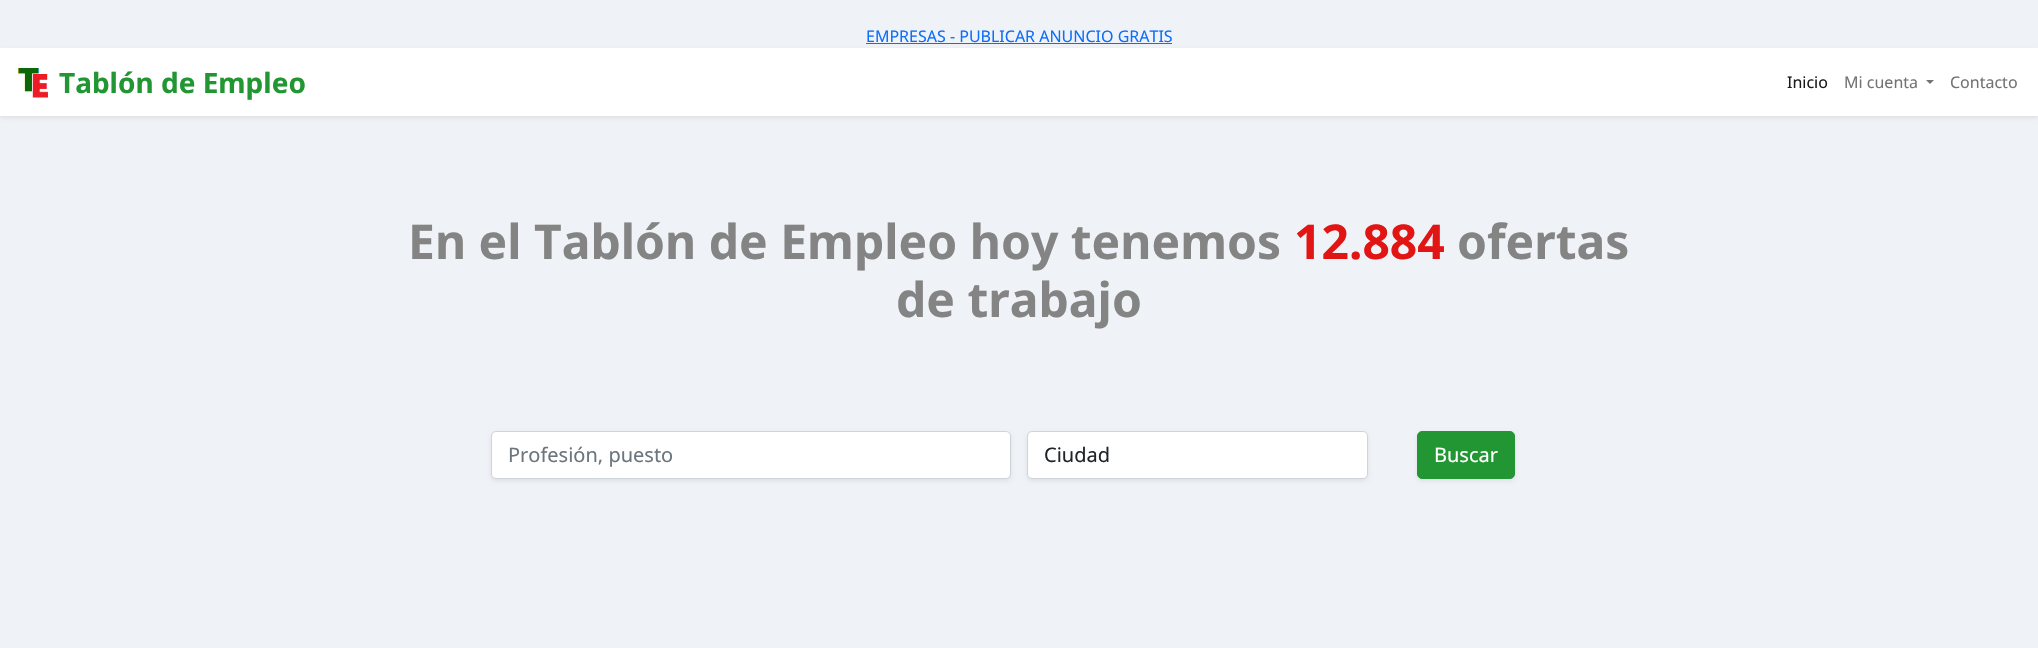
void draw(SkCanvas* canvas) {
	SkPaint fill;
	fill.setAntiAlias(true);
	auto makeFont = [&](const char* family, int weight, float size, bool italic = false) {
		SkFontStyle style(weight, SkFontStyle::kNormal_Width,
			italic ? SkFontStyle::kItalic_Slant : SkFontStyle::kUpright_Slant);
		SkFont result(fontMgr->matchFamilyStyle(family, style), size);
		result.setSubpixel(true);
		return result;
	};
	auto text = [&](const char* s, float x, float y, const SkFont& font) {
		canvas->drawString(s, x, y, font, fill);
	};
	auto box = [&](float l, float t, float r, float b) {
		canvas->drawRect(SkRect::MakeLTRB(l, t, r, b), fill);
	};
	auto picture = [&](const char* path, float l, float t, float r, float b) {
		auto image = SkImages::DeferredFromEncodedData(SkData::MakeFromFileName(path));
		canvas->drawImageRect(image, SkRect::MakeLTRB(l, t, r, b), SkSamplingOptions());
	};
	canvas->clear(0xFFEFF2F6);
	fill.setColor(0xFF0D6EFD);
	box(866, 43, 1172, 44);
	fill.setColor(0x12000000);
	fill.setMaskFilter(SkMaskFilter::MakeBlur(kNormal_SkBlurStyle, 2));
	canvas->drawRect(SkRect::MakeLTRB(0, 50, 2038, 118), fill);
	fill.setMaskFilter(nullptr);
	fill.setColor(0xFFFFFFFF);
	box(0, 48, 2038, 116);
	picture("image0.png", 18, 68, 48, 98);
	fill.setColor(0xFF737373);
	canvas->drawPath(SkPathBuilder().moveTo(1926, 80).lineTo(1934, 80).lineTo(1930, 84).close().detach(), fill);
	fill.setColor(0x12000000);
	fill.setMaskFilter(SkMaskFilter::MakeBlur(kNormal_SkBlurStyle, 2));
	canvas->drawRoundRect(SkRect::MakeLTRB(491, 433, 1011, 481), 5, 5, fill);
	fill.setMaskFilter(nullptr);
	fill.setColor(0xFFFFFFFF);
	canvas->drawRoundRect(SkRect::MakeLTRB(491.5f, 431.5f, 1010.5f, 478.5f), 4.5f, 4.5f, fill);
	fill.setStyle(SkPaint::kStroke_Style);
	fill.setStrokeWidth(1);
	fill.setColor(0xFFCED4DA);
	canvas->drawRoundRect(SkRect::MakeLTRB(491.5f, 431.5f, 1010.5f, 478.5f), 4.5f, 4.5f, fill);
	fill.setStyle(SkPaint::kFill_Style);
	fill.setColor(0x12000000);
	fill.setMaskFilter(SkMaskFilter::MakeBlur(kNormal_SkBlurStyle, 2));
	canvas->drawRoundRect(SkRect::MakeLTRB(1027, 433, 1368, 481), 5, 5, fill);
	fill.setMaskFilter(nullptr);
	fill.setColor(0xFFFFFFFF);
	canvas->drawRoundRect(SkRect::MakeLTRB(1027.5f, 431.5f, 1367.5f, 478.5f), 4.5f, 4.5f, fill);
	fill.setStyle(SkPaint::kStroke_Style);
	fill.setColor(0xFFCED4DA);
	canvas->drawRoundRect(SkRect::MakeLTRB(1027.5f, 431.5f, 1367.5f, 478.5f), 4.5f, 4.5f, fill);
	fill.setStyle(SkPaint::kFill_Style);
	fill.setColor(0x12000000);
	fill.setMaskFilter(SkMaskFilter::MakeBlur(kNormal_SkBlurStyle, 2));
	canvas->drawRoundRect(SkRect::MakeLTRB(1417, 433, 1515, 481), 5, 5, fill);
	fill.setMaskFilter(nullptr);
	fill.setColor(0xFF219632);
	canvas->drawRoundRect(SkRect::MakeLTRB(1417.5f, 431.5f, 1514.5f, 478.5f), 4.5f, 4.5f, fill);
	fill.setStyle(SkPaint::kStroke_Style);
	canvas->drawRoundRect(SkRect::MakeLTRB(1417.5f, 431.5f, 1514.5f, 478.5f), 4.5f, 4.5f, fill);
	auto font1 = makeFont("Noto Sans", 400, 16);
	fill.setStyle(SkPaint::kFill_Style);
	fill.setColor(0xFF0D6EFD);
	text("EMPRESAS - PUBLICAR ANUNCIO GRATIS", 866, 42, font1);
	auto font2 = makeFont("Noto Sans", 700, 28);
	fill.setColor(0xFF219632);
	text("Tablón de Empleo", 59, 93, font2);
	fill.setColor(0xFF1A1A1A);
	text("Inicio", 1787, 88, font1);
	fill.setColor(0xFF737373);
	text("Mi cuenta", 1844, 88, font1);
	text("Contacto", 1950, 88, font1);
	auto font3 = makeFont("Noto Sans", 700, 48);
	fill.setColor(0xFF848484);
	text("En el Tablón de Empleo hoy tenemos", 408, 259, font3);
	fill.setColor(0xFFE21515);
	text("12.884", 1294, 259, font3);
	fill.setColor(0xFF848484);
	text("ofertas", 1457, 259, font3);
	text("de trabajo", 896, 317, font3);
	auto font4 = makeFont("Noto Sans", 400, 20);
	fill.setColor(0xFF6C757D);
	text("Profesión, puesto", 508, 462, font4);
	fill.setColor(0xFF212529);
	text("Ciudad", 1044, 462, font4);
	fill.setColor(0xFFFFFFFF);
	text("Buscar", 1434, 462, font4);
}
